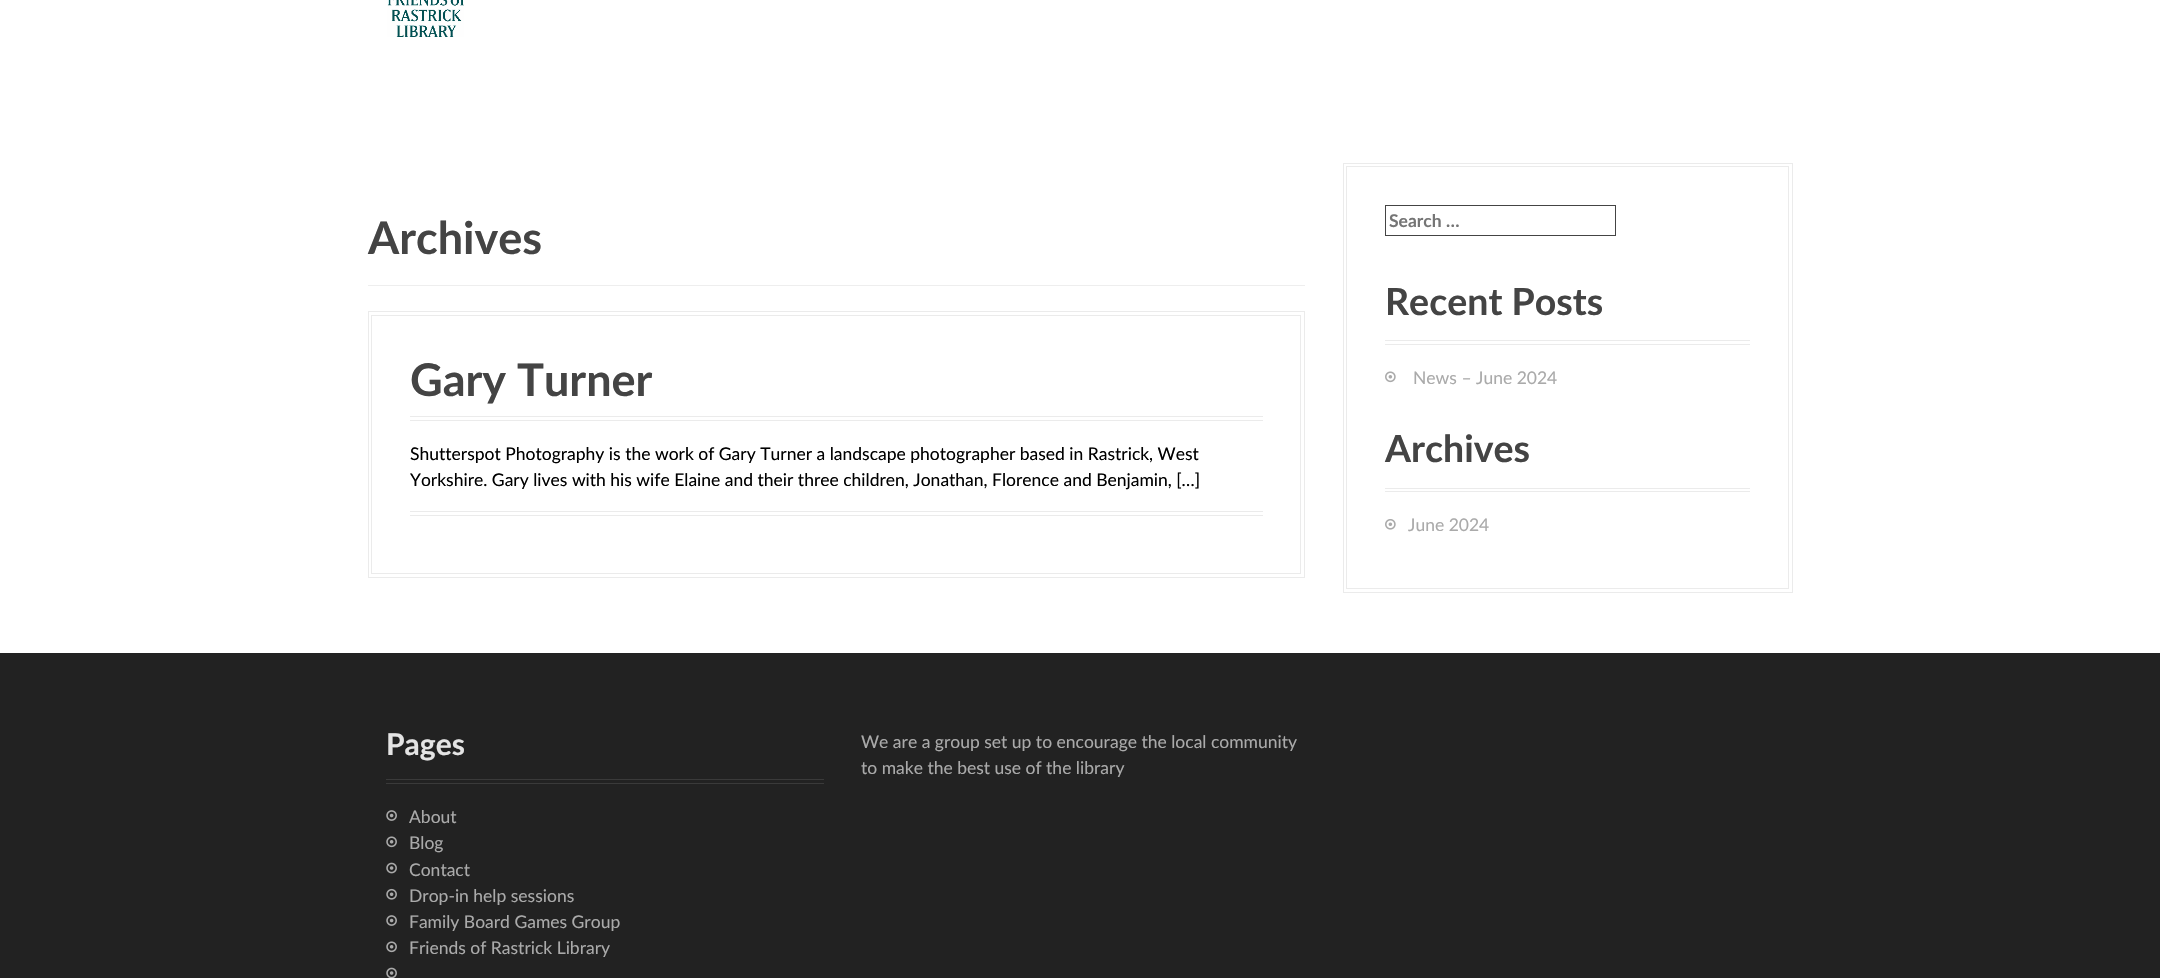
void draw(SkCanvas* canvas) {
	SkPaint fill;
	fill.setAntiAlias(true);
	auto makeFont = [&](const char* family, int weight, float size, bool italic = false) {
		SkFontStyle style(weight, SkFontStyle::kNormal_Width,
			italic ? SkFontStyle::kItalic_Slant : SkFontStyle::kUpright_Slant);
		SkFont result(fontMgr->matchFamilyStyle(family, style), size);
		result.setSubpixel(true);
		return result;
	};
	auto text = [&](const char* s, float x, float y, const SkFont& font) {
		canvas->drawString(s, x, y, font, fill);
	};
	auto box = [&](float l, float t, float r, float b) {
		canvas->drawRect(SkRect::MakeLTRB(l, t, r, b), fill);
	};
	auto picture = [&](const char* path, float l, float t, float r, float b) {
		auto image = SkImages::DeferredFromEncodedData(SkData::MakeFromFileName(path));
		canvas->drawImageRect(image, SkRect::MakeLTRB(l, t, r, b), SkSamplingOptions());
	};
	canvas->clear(0xFFFFFFFF);
	picture("image0.png", 387, 0, 464, 37);
	fill.setColor(0xFFEEEEEE);
	box(368, 285, 1305, 286);
	fill.setStyle(SkPaint::kStroke_Style);
	fill.setStrokeWidth(1);
	fill.setColor(0xFFEBEBEB);
	canvas->drawRect(SkRect::MakeLTRB(368.5f, 311.5f, 1304.5f, 577.5f), fill);
	canvas->drawRect(SkRect::MakeLTRB(371.5f, 315.5f, 1300.5f, 573.5f), fill);
	fill.setStyle(SkPaint::kFill_Style);
	box(410, 416, 1263, 417);
	box(410, 420, 1263, 421);
	box(410, 511, 1263, 512);
	box(410, 515, 1263, 516);
	fill.setStyle(SkPaint::kStroke_Style);
	canvas->drawRect(SkRect::MakeLTRB(1343.5f, 163.5f, 1792.5f, 592.5f), fill);
	canvas->drawRect(SkRect::MakeLTRB(1346.5f, 166.5f, 1788.5f, 588.5f), fill);
	fill.setColor(0xFF444444);
	canvas->drawRect(SkRect::MakeLTRB(1385.5f, 205.5f, 1615.5f, 235.5f), fill);
	fill.setStyle(SkPaint::kFill_Style);
	fill.setColor(0xFFEBEBEB);
	box(1385, 340, 1750, 341);
	box(1385, 344, 1750, 345);
	picture("image1.png", 1385, 371, 1396, 383);
	box(1385, 488, 1750, 489);
	box(1385, 491, 1750, 492);
	picture("image2.png", 1385, 519, 1396, 530);
	fill.setColor(0xFF222222);
	box(0, 653, 2160, 978);
	fill.setColor(0xFF3A3A3A);
	box(386, 779, 824, 780);
	box(386, 783, 824, 784);
	picture("image3.png", 386, 810, 397, 821);
	picture("image4.png", 386, 836, 397, 848);
	picture("image5.png", 386, 862, 397, 874);
	picture("image6.png", 386, 888, 397, 900);
	picture("image3.png", 386, 915, 397, 926);
	picture("image4.png", 386, 941, 397, 953);
	picture("image7.png", 386, 967, 397, 978);
	auto font1 = makeFont("Lato", 700, 45);
	fill.setColor(0xFF444444);
	text("Archives", 368, 254, font1);
	text("Gary Turner", 410, 396, font1);
	auto font2 = makeFont("Lato", 400, 17.5f);
	fill.setColor(0xFF000000);
	text("Shutterspot Photography is the work of Gary Turner a landscape photographer based in Rastrick, West", 410, 460, font2);
	text("Yorkshire. Gary lives with his wife Elaine and their three children, Jonathan, Florence and Benjamin, […]", 410, 486, font2);
	auto font3 = makeFont("Lato", 700, 17.5f);
	fill.setColor(0xFF757575);
	text("Search …", 1389, 227, font3);
	auto font4 = makeFont("Lato", 700, 37.5f);
	fill.setColor(0xFF444444);
	text("Recent Posts", 1385, 315, font4);
	fill.setColor(0xFFAAAAAA);
	text("News – June 2024", 1413, 384, font2);
	fill.setColor(0xFF444444);
	text("Archives", 1385, 462, font4);
	fill.setColor(0xFFAAAAAA);
	text("June 2024", 1408, 531, font2);
	auto font5 = makeFont("Lato", 700, 30);
	fill.setColor(0xFFE4E4E4);
	text("Pages", 386, 755, font5);
	fill.setColor(0xFFAAAAAA);
	text("About", 409, 823, font2);
	text("Blog", 409, 849, font2);
	text("Contact", 409, 876, font2);
	text("Drop-in help sessions", 409, 902, font2);
	text("Family Board Games Group", 409, 928, font2);
	text("Friends of Rastrick Library", 409, 954, font2);
	text("We are a group set up to encourage the local community", 861, 748, font2);
	text("to make the best use of the library", 861, 774, font2);
}
